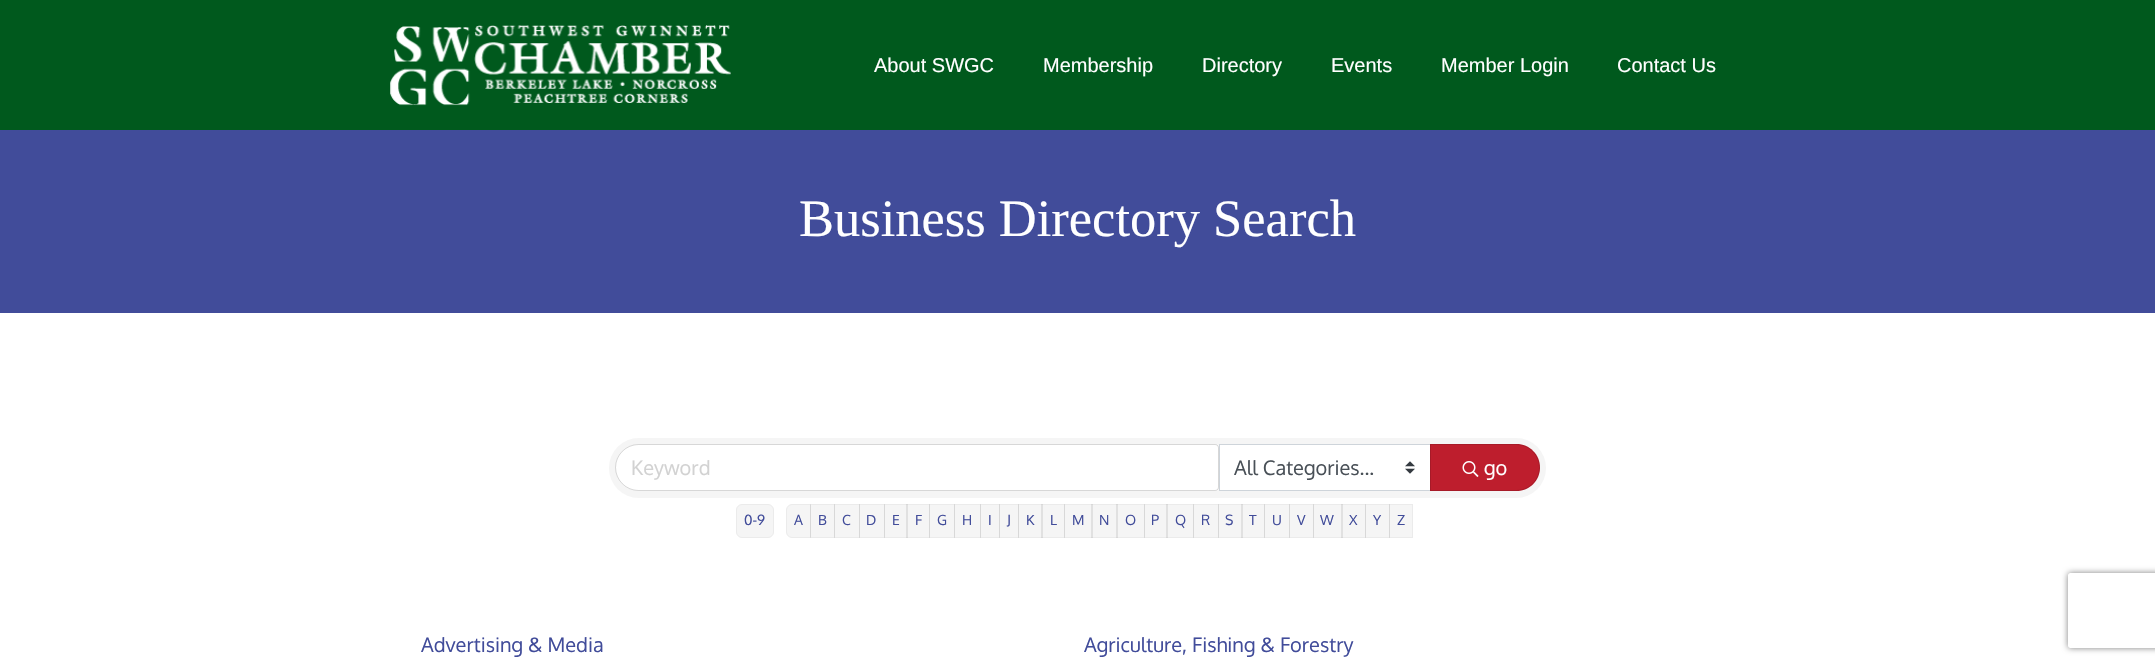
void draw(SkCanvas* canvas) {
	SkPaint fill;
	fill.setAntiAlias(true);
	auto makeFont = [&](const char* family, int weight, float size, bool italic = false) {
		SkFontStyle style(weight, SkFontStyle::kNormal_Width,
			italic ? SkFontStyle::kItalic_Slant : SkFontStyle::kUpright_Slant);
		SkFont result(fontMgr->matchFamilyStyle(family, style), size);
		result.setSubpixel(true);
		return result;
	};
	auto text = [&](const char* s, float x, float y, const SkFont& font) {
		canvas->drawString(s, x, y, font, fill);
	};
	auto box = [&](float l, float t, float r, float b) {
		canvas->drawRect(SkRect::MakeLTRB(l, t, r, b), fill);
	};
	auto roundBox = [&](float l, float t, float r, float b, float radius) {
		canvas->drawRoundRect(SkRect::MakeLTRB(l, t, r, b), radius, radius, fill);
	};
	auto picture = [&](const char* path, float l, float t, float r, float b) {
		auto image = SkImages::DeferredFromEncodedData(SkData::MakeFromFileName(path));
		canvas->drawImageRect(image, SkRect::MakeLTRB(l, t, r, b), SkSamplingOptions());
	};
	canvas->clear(0xFFFFFFFF);
	fill.setColor(0xFF00591D);
	box(0, 0, 2155, 130);
	picture("image0.png", 390, 25, 731, 106);
	fill.setColor(0xFF414C9A);
	box(0, 130, 2155, 313);
	fill.setColor(0xFFF5F5F5);
	roundBox(609, 438, 1546, 498, 30);
	fill.setColor(0xFFFFFFFF);
	canvas->drawPath(SkPathBuilder().moveTo(638.5f, 445).lineTo(1215.5f, 445).cubicTo(1217, 445, 1218, 446, 1218, 447.5f).lineTo(1218, 487.5f).cubicTo(1218, 489, 1217, 490, 1215.5f, 490).lineTo(638.5f, 490).cubicTo(626, 490, 616, 480, 616, 467.5f).cubicTo(616, 455, 626, 445, 638.5f, 445).close().detach(), fill);
	fill.setStyle(SkPaint::kStroke_Style);
	fill.setStrokeWidth(1);
	fill.setColor(0x1F000000);
	canvas->drawPath(SkPathBuilder().moveTo(638.5f, 444.5f).lineTo(1215, 444.5f).cubicTo(1217, 444.5f, 1218.5f, 446, 1218.5f, 448).lineTo(1218.5f, 487).cubicTo(1218.5f, 489, 1217, 490.5f, 1215, 490.5f).lineTo(638.5f, 490.5f).cubicTo(626, 490.5f, 615.5f, 480, 615.5f, 467.5f).cubicTo(615.5f, 455, 626, 444.5f, 638.5f, 444.5f).close().detach(), fill);
	fill.setStyle(SkPaint::kFill_Style);
	fill.setColor(0xFFFFFFFF);
	box(1220, 445, 1430, 490);
	picture("image1.png", 1405, 461, 1415, 474);
	fill.setStyle(SkPaint::kStroke_Style);
	fill.setColor(0xFFCED4DA);
	canvas->drawRect(SkRect::MakeLTRB(1219.5f, 444.5f, 1430.5f, 490.5f), fill);
	fill.setStyle(SkPaint::kFill_Style);
	fill.setColor(0xFFBE1E2D);
	canvas->drawPath(SkPathBuilder().moveTo(1430, 444).lineTo(1516.5f, 444).cubicTo(1529.5f, 444, 1540, 454.5f, 1540, 467.5f).cubicTo(1540, 480.5f, 1529.5f, 491, 1516.5f, 491).lineTo(1430, 491).close().detach(), fill);
	fill.setStyle(SkPaint::kStroke_Style);
	fill.setColor(0x1F000000);
	canvas->drawPath(SkPathBuilder().moveTo(1430.5f, 444.5f).lineTo(1516.5f, 444.5f).cubicTo(1529, 444.5f, 1539.5f, 455, 1539.5f, 467.5f).cubicTo(1539.5f, 480, 1529, 490.5f, 1516.5f, 490.5f).lineTo(1430.5f, 490.5f).close().detach(), fill);
	picture("image2.png", 1462, 461, 1479, 477);
	fill.setStyle(SkPaint::kFill_Style);
	fill.setColor(0xFFF5F5F5);
	canvas->drawRoundRect(SkRect::MakeLTRB(736.5f, 504.5f, 773.5f, 537.5f), 5.5f, 5.5f, fill);
	fill.setStyle(SkPaint::kStroke_Style);
	fill.setColor(0xFFEBEBEB);
	canvas->drawRoundRect(SkRect::MakeLTRB(736.5f, 504.5f, 773.5f, 537.5f), 5.5f, 5.5f, fill);
	fill.setStyle(SkPaint::kFill_Style);
	fill.setColor(0xFFF5F5F5);
	canvas->drawPath(SkPathBuilder().moveTo(792, 504.5f).lineTo(810.5f, 504.5f).lineTo(810.5f, 537.5f).lineTo(792, 537.5f).cubicTo(789, 537.5f, 786.5f, 535, 786.5f, 532).lineTo(786.5f, 510).cubicTo(786.5f, 507, 789, 504.5f, 792, 504.5f).close().detach(), fill);
	fill.setStyle(SkPaint::kStroke_Style);
	fill.setColor(0xFFEBEBEB);
	canvas->drawPath(SkPathBuilder().moveTo(792, 504.5f).lineTo(810.5f, 504.5f).lineTo(810.5f, 537.5f).lineTo(792, 537.5f).cubicTo(789, 537.5f, 786.5f, 535, 786.5f, 532).lineTo(786.5f, 510).cubicTo(786.5f, 507, 789, 504.5f, 792, 504.5f).close().detach(), fill);
	fill.setStyle(SkPaint::kFill_Style);
	fill.setColor(0x0A000000);
	box(810, 504, 835, 538);
	fill.setStyle(SkPaint::kStroke_Style);
	canvas->drawRect(SkRect::MakeLTRB(810.5f, 504.5f, 834.5f, 537.5f), fill);
	fill.setStyle(SkPaint::kFill_Style);
	box(834, 504, 860, 538);
	fill.setStyle(SkPaint::kStroke_Style);
	canvas->drawRect(SkRect::MakeLTRB(834.5f, 504.5f, 859.5f, 537.5f), fill);
	fill.setStyle(SkPaint::kFill_Style);
	box(859, 504, 885, 538);
	fill.setStyle(SkPaint::kStroke_Style);
	canvas->drawRect(SkRect::MakeLTRB(859.5f, 504.5f, 884.5f, 537.5f), fill);
	fill.setStyle(SkPaint::kFill_Style);
	box(884, 504, 908, 538);
	fill.setStyle(SkPaint::kStroke_Style);
	canvas->drawRect(SkRect::MakeLTRB(884.5f, 504.5f, 907.5f, 537.5f), fill);
	fill.setStyle(SkPaint::kFill_Style);
	box(906, 504, 930, 538);
	fill.setStyle(SkPaint::kStroke_Style);
	canvas->drawRect(SkRect::MakeLTRB(906.5f, 504.5f, 929.5f, 537.5f), fill);
	fill.setStyle(SkPaint::kFill_Style);
	box(929, 504, 955, 538);
	fill.setStyle(SkPaint::kStroke_Style);
	canvas->drawRect(SkRect::MakeLTRB(929.5f, 504.5f, 954.5f, 537.5f), fill);
	fill.setStyle(SkPaint::kFill_Style);
	box(954, 504, 981, 538);
	fill.setStyle(SkPaint::kStroke_Style);
	canvas->drawRect(SkRect::MakeLTRB(954.5f, 504.5f, 980.5f, 537.5f), fill);
	fill.setStyle(SkPaint::kFill_Style);
	box(980, 504, 1000, 538);
	fill.setStyle(SkPaint::kStroke_Style);
	canvas->drawRect(SkRect::MakeLTRB(980.5f, 504.5f, 999.5f, 537.5f), fill);
	fill.setStyle(SkPaint::kFill_Style);
	box(999, 504, 1019, 538);
	fill.setStyle(SkPaint::kStroke_Style);
	canvas->drawRect(SkRect::MakeLTRB(999.5f, 504.5f, 1018.5f, 537.5f), fill);
	fill.setStyle(SkPaint::kFill_Style);
	box(1018, 504, 1043, 538);
	fill.setStyle(SkPaint::kStroke_Style);
	canvas->drawRect(SkRect::MakeLTRB(1018.5f, 504.5f, 1042.5f, 537.5f), fill);
	fill.setStyle(SkPaint::kFill_Style);
	box(1041, 504, 1065, 538);
	fill.setStyle(SkPaint::kStroke_Style);
	canvas->drawRect(SkRect::MakeLTRB(1041.5f, 504.5f, 1064.5f, 537.5f), fill);
	fill.setStyle(SkPaint::kFill_Style);
	box(1064, 504, 1093, 538);
	fill.setStyle(SkPaint::kStroke_Style);
	canvas->drawRect(SkRect::MakeLTRB(1064.5f, 504.5f, 1092.5f, 537.5f), fill);
	fill.setStyle(SkPaint::kFill_Style);
	box(1091, 504, 1118, 538);
	fill.setStyle(SkPaint::kStroke_Style);
	canvas->drawRect(SkRect::MakeLTRB(1091.5f, 504.5f, 1117.5f, 537.5f), fill);
	fill.setStyle(SkPaint::kFill_Style);
	box(1116, 504, 1145, 538);
	fill.setStyle(SkPaint::kStroke_Style);
	canvas->drawRect(SkRect::MakeLTRB(1116.5f, 504.5f, 1144.5f, 537.5f), fill);
	fill.setStyle(SkPaint::kFill_Style);
	box(1144, 504, 1168, 538);
	fill.setStyle(SkPaint::kStroke_Style);
	canvas->drawRect(SkRect::MakeLTRB(1144.5f, 504.5f, 1167.5f, 537.5f), fill);
	fill.setStyle(SkPaint::kFill_Style);
	box(1166, 504, 1194, 538);
	fill.setStyle(SkPaint::kStroke_Style);
	canvas->drawRect(SkRect::MakeLTRB(1166.5f, 504.5f, 1193.5f, 537.5f), fill);
	fill.setStyle(SkPaint::kFill_Style);
	box(1193, 504, 1219, 538);
	fill.setStyle(SkPaint::kStroke_Style);
	canvas->drawRect(SkRect::MakeLTRB(1193.5f, 504.5f, 1218.5f, 537.5f), fill);
	fill.setStyle(SkPaint::kFill_Style);
	box(1218, 504, 1243, 538);
	fill.setStyle(SkPaint::kStroke_Style);
	canvas->drawRect(SkRect::MakeLTRB(1218.5f, 504.5f, 1242.5f, 537.5f), fill);
	fill.setStyle(SkPaint::kFill_Style);
	box(1241, 504, 1265, 538);
	fill.setStyle(SkPaint::kStroke_Style);
	canvas->drawRect(SkRect::MakeLTRB(1241.5f, 504.5f, 1264.5f, 537.5f), fill);
	fill.setStyle(SkPaint::kFill_Style);
	box(1264, 504, 1290, 538);
	fill.setStyle(SkPaint::kStroke_Style);
	canvas->drawRect(SkRect::MakeLTRB(1264.5f, 504.5f, 1289.5f, 537.5f), fill);
	fill.setStyle(SkPaint::kFill_Style);
	box(1289, 504, 1314, 538);
	fill.setStyle(SkPaint::kStroke_Style);
	canvas->drawRect(SkRect::MakeLTRB(1289.5f, 504.5f, 1313.5f, 537.5f), fill);
	fill.setStyle(SkPaint::kFill_Style);
	box(1313, 504, 1343, 538);
	fill.setStyle(SkPaint::kStroke_Style);
	canvas->drawRect(SkRect::MakeLTRB(1313.5f, 504.5f, 1342.5f, 537.5f), fill);
	fill.setStyle(SkPaint::kFill_Style);
	box(1341, 504, 1366, 538);
	fill.setStyle(SkPaint::kStroke_Style);
	canvas->drawRect(SkRect::MakeLTRB(1341.5f, 504.5f, 1365.5f, 537.5f), fill);
	fill.setStyle(SkPaint::kFill_Style);
	box(1365, 504, 1390, 538);
	fill.setStyle(SkPaint::kStroke_Style);
	canvas->drawRect(SkRect::MakeLTRB(1365.5f, 504.5f, 1389.5f, 537.5f), fill);
	fill.setStyle(SkPaint::kFill_Style);
	box(1389, 504, 1413, 538);
	fill.setStyle(SkPaint::kStroke_Style);
	canvas->drawRect(SkRect::MakeLTRB(1389.5f, 504.5f, 1412.5f, 537.5f), fill);
	canvas->save();
	canvas->clipPath(SkPathBuilder(SkPathFillType::kEvenOdd).moveTo(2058, 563).lineTo(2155, 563).lineTo(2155, 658).lineTo(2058, 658).close().moveTo(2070.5f, 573).lineTo(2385.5f, 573).cubicTo(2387, 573, 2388, 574, 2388, 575.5f).lineTo(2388, 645.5f).cubicTo(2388, 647, 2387, 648, 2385.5f, 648).lineTo(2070.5f, 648).cubicTo(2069, 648, 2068, 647, 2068, 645.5f).lineTo(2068, 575.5f).cubicTo(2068, 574, 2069, 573, 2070.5f, 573).close().detach(), true);
	fill.setStyle(SkPaint::kFill_Style);
	fill.setColor(0xFF808080);
	fill.setMaskFilter(SkMaskFilter::MakeBlur(kNormal_SkBlurStyle, 3));
	canvas->drawRoundRect(SkRect::MakeLTRB(2068, 573, 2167, 648), 2.5f, 2.5f, fill);
	fill.setMaskFilter(nullptr);
	canvas->restore();
	auto font1 = makeFont("Liberation Sans", 400, 20);
	fill.setColor(0xFFFFFFFF);
	text("About SWGC", 874, 72, font1);
	text("Membership", 1043, 72, font1);
	text("Directory", 1202, 72, font1);
	text("Events", 1331, 72, font1);
	text("Member Login", 1441, 72, font1);
	text("Contact Us", 1617, 72, font1);
	auto font2 = makeFont("Liberation Serif", 400, 52.5f);
	text("Business Directory Search", 799, 236, font2);
	auto font3 = makeFont("Oxygen", 400, 20);
	fill.setColor(0xFFD2D2D2);
	text("Keyword", 631, 475, font3);
	fill.setColor(0xFF495057);
	text("All Categories...", 1234, 475, font3);
	fill.setColor(0xFFFFFFFF);
	text("go", 1484, 475, font3);
	auto font4 = makeFont("Oxygen", 400, 14);
	fill.setColor(0xFF414C9A);
	text("0-9", 744, 525, font4);
	text("A", 794, 525, font4);
	text("B", 818, 525, font4);
	text("C", 842, 525, font4);
	text("D", 866, 525, font4);
	text("E", 892, 525, font4);
	text("F", 915, 525, font4);
	text("G", 937, 525, font4);
	text("H", 962, 525, font4);
	text("I", 988, 525, font4);
	text("J", 1007, 525, font4);
	text("K", 1026, 525, font4);
	text("L", 1050, 525, font4);
	text("M", 1072, 525, font4);
	text("N", 1099, 525, font4);
	text("O", 1125, 525, font4);
	text("P", 1151, 525, font4);
	text("Q", 1175, 525, font4);
	text("R", 1201, 525, font4);
	text("S", 1225, 525, font4);
	text("T", 1249, 525, font4);
	text("U", 1272, 525, font4);
	text("V", 1297, 525, font4);
	text("W", 1320, 525, font4);
	text("X", 1349, 525, font4);
	text("Y", 1373, 525, font4);
	text("Z", 1397, 525, font4);
	text("Advertising & Media", 421, 652, font3);
	text("Agriculture, Fishing & Forestry", 1084, 652, font3);
}
